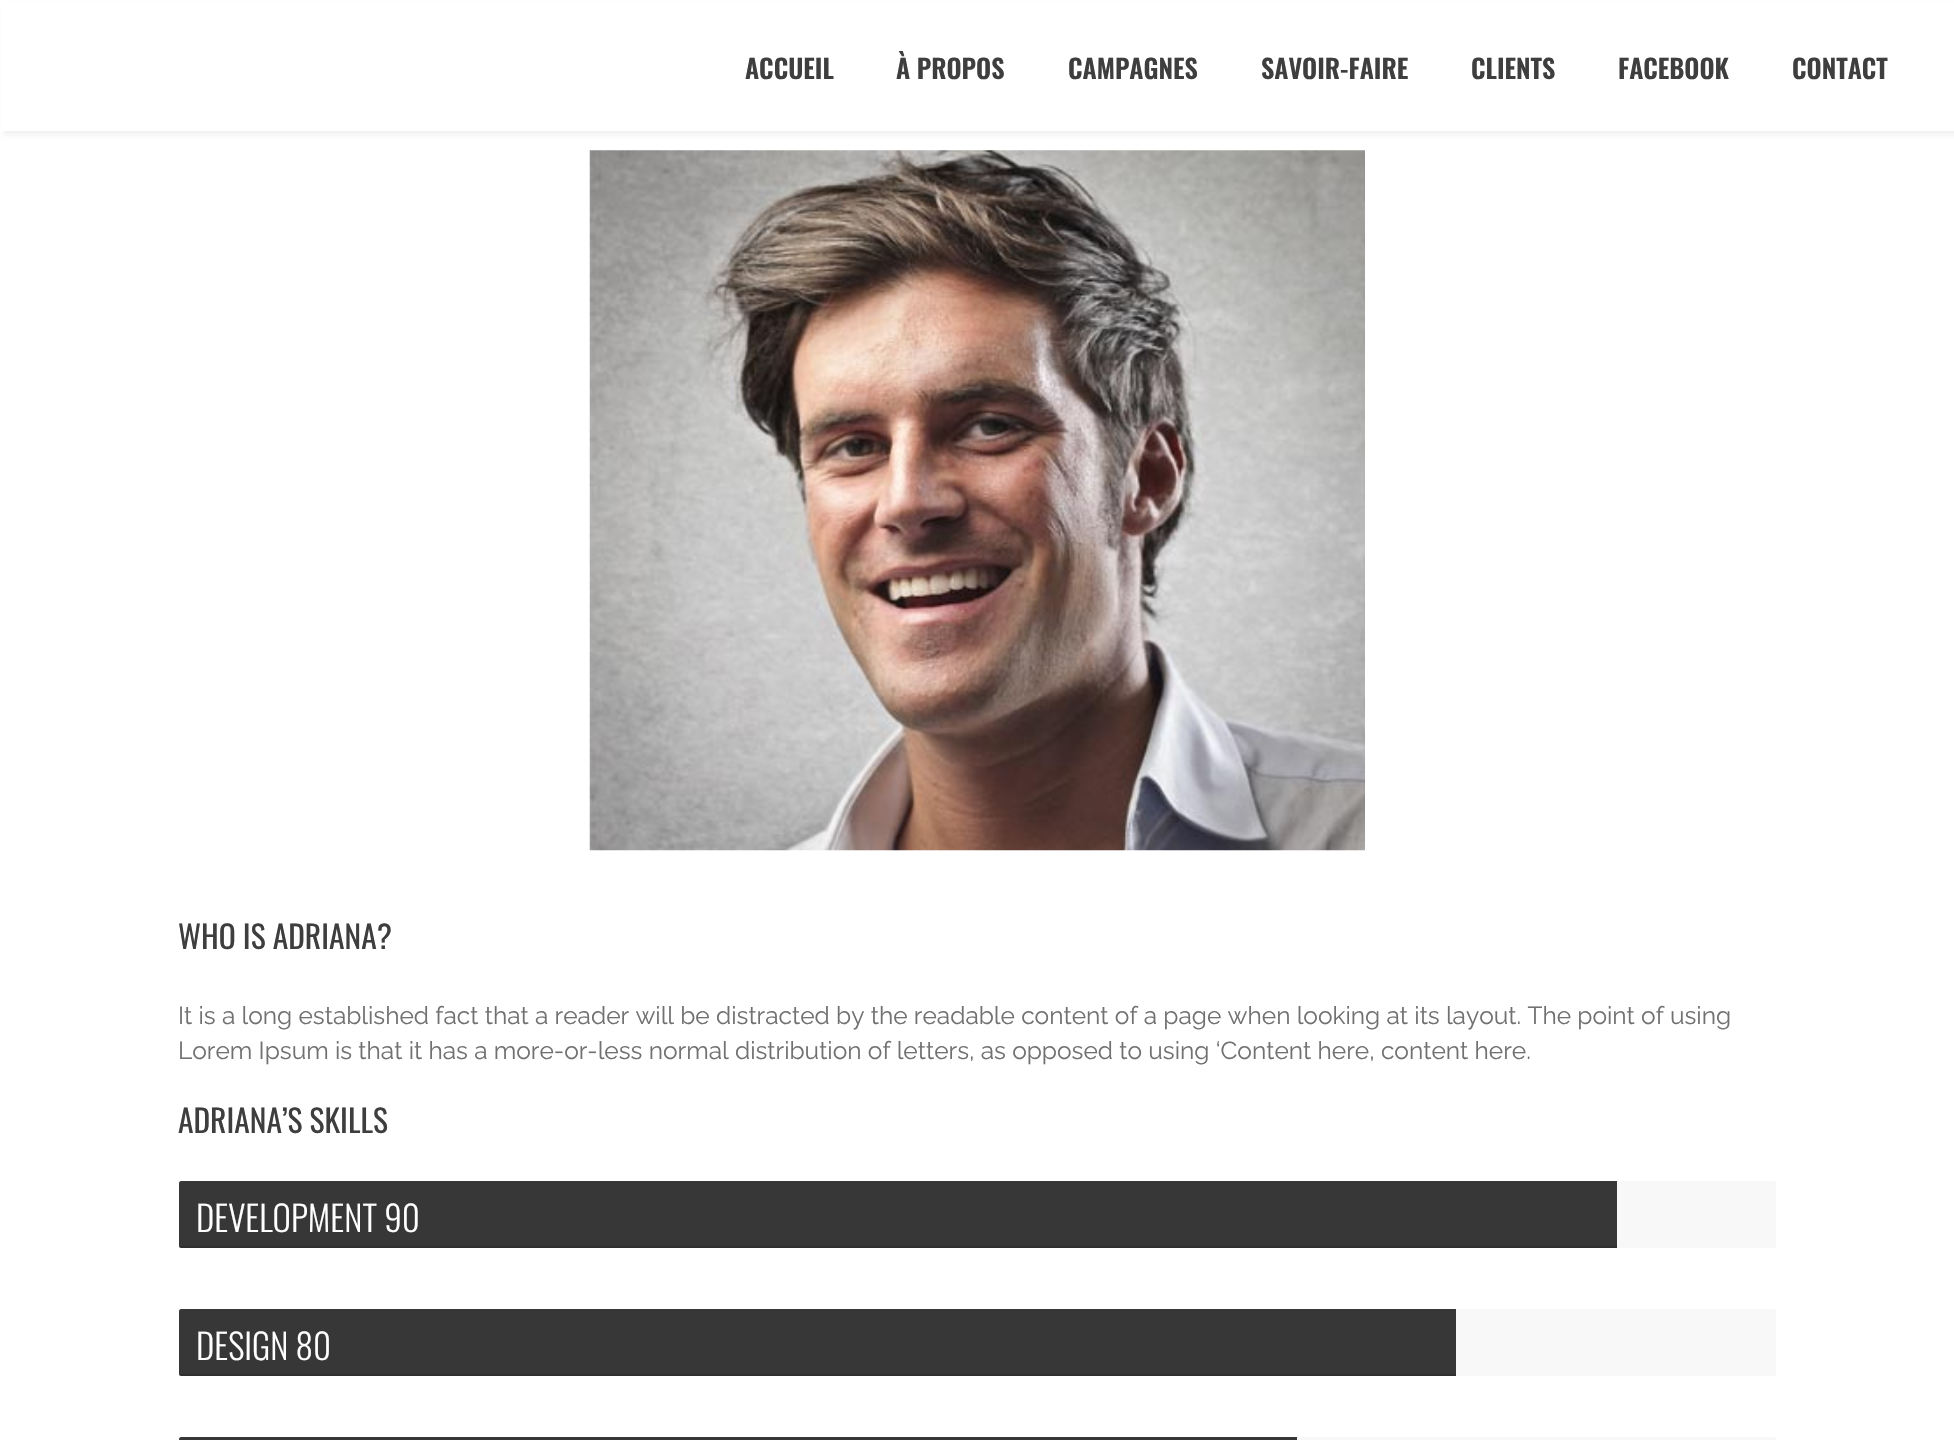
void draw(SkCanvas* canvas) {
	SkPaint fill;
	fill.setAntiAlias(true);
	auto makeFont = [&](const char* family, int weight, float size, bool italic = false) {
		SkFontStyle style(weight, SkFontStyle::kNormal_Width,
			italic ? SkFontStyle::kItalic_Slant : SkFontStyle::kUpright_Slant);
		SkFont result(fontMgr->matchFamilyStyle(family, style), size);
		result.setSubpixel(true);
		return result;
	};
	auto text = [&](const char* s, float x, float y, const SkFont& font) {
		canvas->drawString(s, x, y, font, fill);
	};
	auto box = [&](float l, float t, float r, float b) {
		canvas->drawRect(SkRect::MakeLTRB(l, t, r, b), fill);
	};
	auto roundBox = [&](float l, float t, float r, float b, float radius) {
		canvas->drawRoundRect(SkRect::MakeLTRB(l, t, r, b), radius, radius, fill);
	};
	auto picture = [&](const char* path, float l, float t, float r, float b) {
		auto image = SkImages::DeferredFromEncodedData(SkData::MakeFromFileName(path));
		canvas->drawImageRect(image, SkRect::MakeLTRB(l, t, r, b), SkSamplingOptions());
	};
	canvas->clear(0xFFFFFFFF);
	fill.setColor(0x0D000000);
	fill.setMaskFilter(SkMaskFilter::MakeBlur(kNormal_SkBlurStyle, 2));
	canvas->drawRect(SkRect::MakeLTRB(4, 4, 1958, 135), fill);
	fill.setMaskFilter(nullptr);
	fill.setColor(0xFFFFFFFF);
	box(2, 2, 1954, 131);
	picture("image0.png", 589, 150, 1365, 851);
	fill.setColor(0xFFF8F8F8);
	roundBox(179, 1181, 1776, 1248, 2);
	fill.setColor(0xFF373737);
	canvas->drawPath(SkPathBuilder().moveTo(181, 1181).lineTo(1617, 1181).lineTo(1617, 1248).lineTo(181, 1248).cubicTo(180, 1248, 179, 1247, 179, 1246).lineTo(179, 1183).cubicTo(179, 1182, 180, 1181, 181, 1181).close().detach(), fill);
	fill.setColor(0x26000000);
	canvas->drawPath(SkPathBuilder().moveTo(179, 1246).lineTo(1617, 1246).lineTo(1617, 1248).lineTo(181, 1248).cubicTo(180, 1248, 179, 1247, 179, 1246).close().detach(), fill);
	fill.setColor(0xFFF8F8F8);
	roundBox(179, 1309, 1776, 1376, 2);
	fill.setColor(0xFF373737);
	canvas->drawPath(SkPathBuilder().moveTo(181, 1309).lineTo(1456, 1309).lineTo(1456, 1376).lineTo(181, 1376).cubicTo(180, 1376, 179, 1375, 179, 1374).lineTo(179, 1311).cubicTo(179, 1310, 180, 1309, 181, 1309).close().detach(), fill);
	fill.setColor(0x26000000);
	canvas->drawPath(SkPathBuilder().moveTo(179, 1374).lineTo(1456, 1374).lineTo(1456, 1376).lineTo(181, 1376).cubicTo(180, 1376, 179, 1375, 179, 1374).close().detach(), fill);
	fill.setColor(0xFFF8F8F8);
	roundBox(179, 1437, 1776, 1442, 2);
	fill.setColor(0xFF373737);
	canvas->drawPath(SkPathBuilder().moveTo(181, 1437).lineTo(1297, 1437).lineTo(1297, 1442).lineTo(181, 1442).cubicTo(180, 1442, 179, 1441, 179, 1440).lineTo(179, 1439).cubicTo(179, 1438, 180, 1437, 181, 1437).close().detach(), fill);
	auto font1 = makeFont("Oswald", 600, 26.25f);
	fill.setColor(0xFF3E3E3E);
	text("ACCUEIL", 745, 79, font1);
	text("À PROPOS", 896, 79, font1);
	text("CAMPAGNES", 1068, 79, font1);
	text("SAVOIR-FAIRE", 1261, 79, font1);
	text("CLIENTS", 1471, 79, font1);
	text("FACEBOOK", 1618, 79, font1);
	text("CONTACT", 1792, 79, font1);
	auto font2 = makeFont("Oswald", 400, 31.5f);
	text("WHO IS ADRIANA?", 178, 949, font2);
	auto font3 = makeFont("Raleway", 100, 24.5f);
	fill.setColor(0xFF717171);
	text("It is a long established fact that a reader will be distracted by the readable content of a page when looking at its layout. The point of using", 178, 1024, font3);
	text("Lorem Ipsum is that it has a more-or-less normal distribution of letters, as opposed to using ‘Content here, content here.", 178, 1059, font3);
	fill.setColor(0xFF3E3E3E);
	text("ADRIANA’S SKILLS", 178, 1133, font2);
	auto font4 = makeFont("Oswald", 300, 35);
	fill.setColor(0xFFFFFFFF);
	text("DEVELOPMENT 90", 196, 1232, font4);
	text("DESIGN 80", 196, 1360, font4);
}
